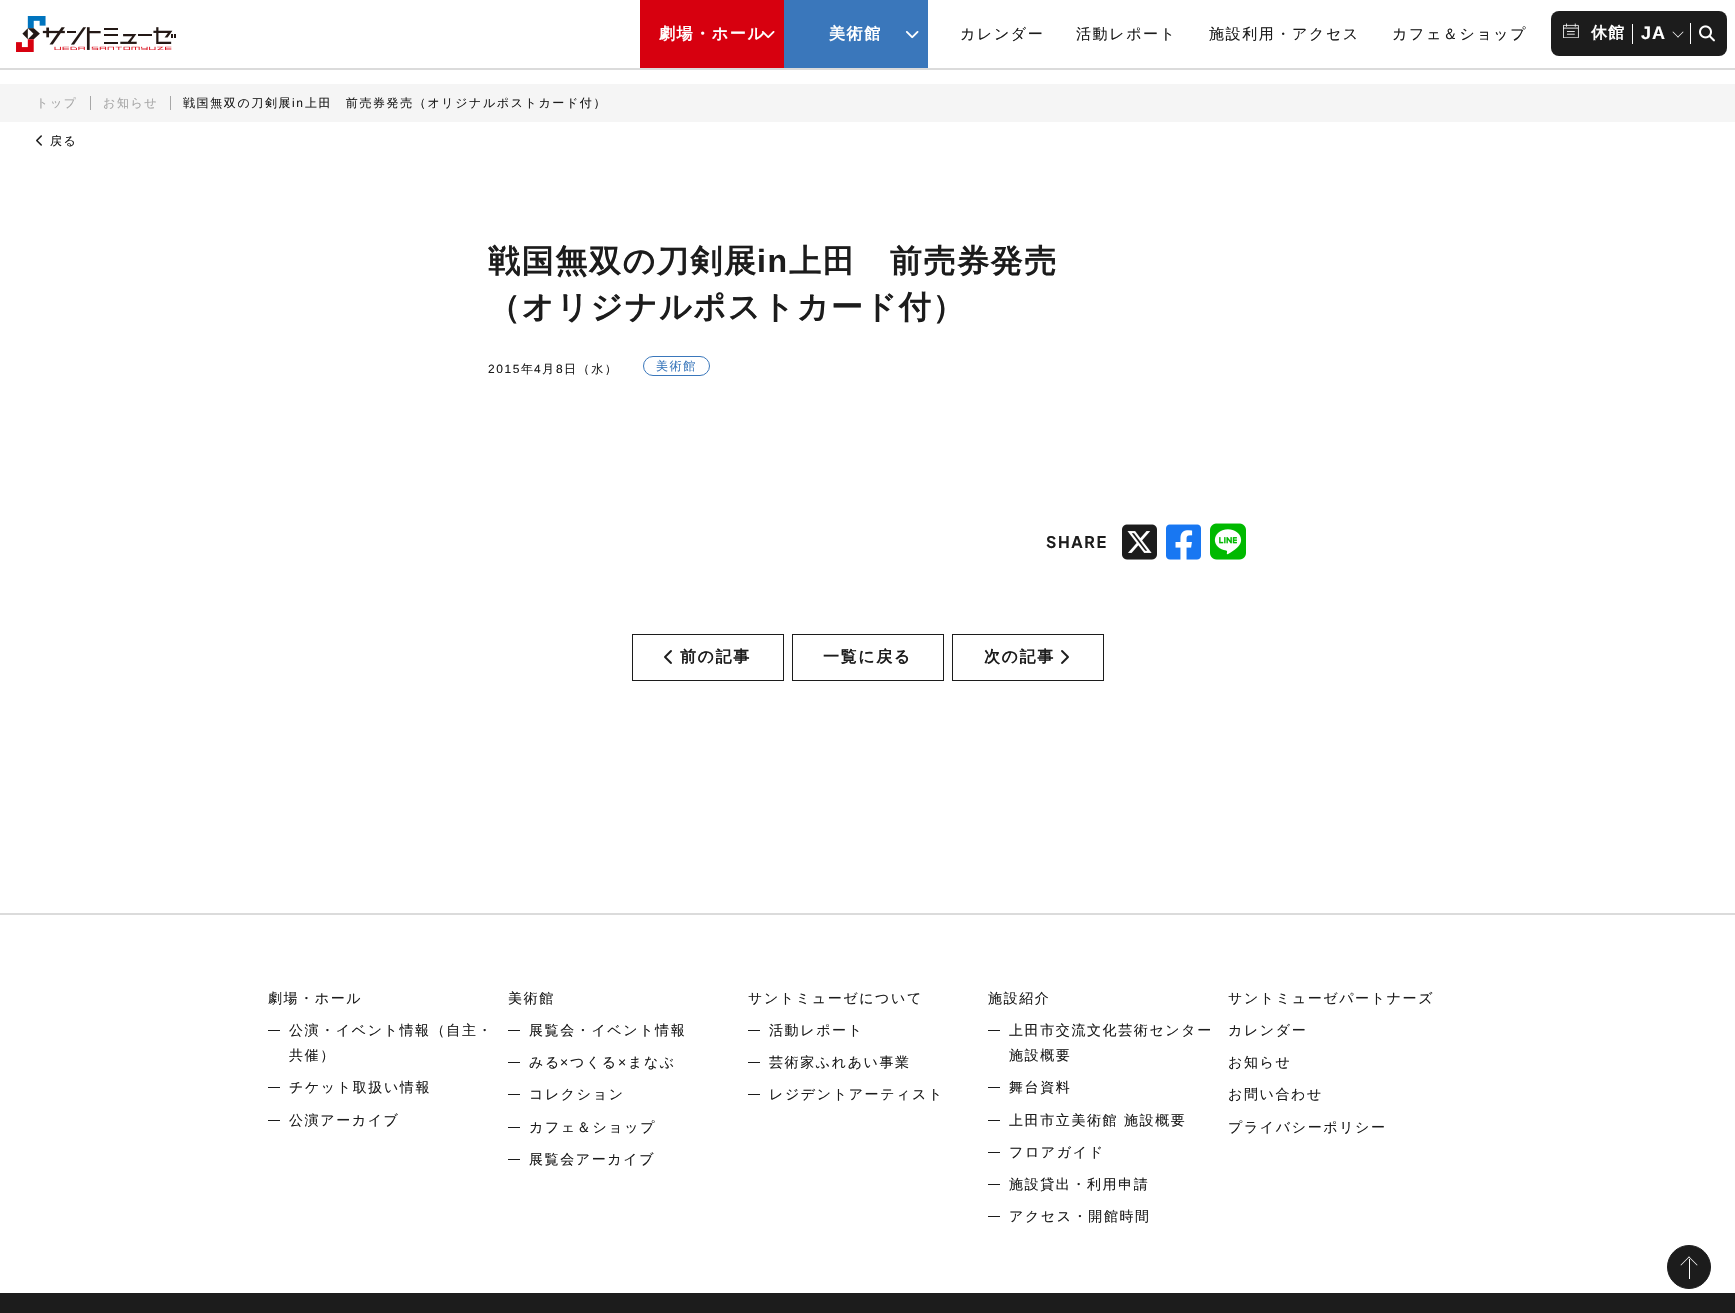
void draw(SkCanvas* canvas) {
	SkPaint fill;
	fill.setAntiAlias(true);
	auto makeFont = [&](const char* family, int weight, float size, bool italic = false) {
		SkFontStyle style(weight, SkFontStyle::kNormal_Width,
			italic ? SkFontStyle::kItalic_Slant : SkFontStyle::kUpright_Slant);
		SkFont result(fontMgr->matchFamilyStyle(family, style), size);
		result.setSubpixel(true);
		return result;
	};
	auto spacedText = [&](const char* s, float x, float y, const SkFont& font, const SkPaint& ink, float letter, float word) {
		std::vector<SkGlyphID> glyphs(font.countText(s, strlen(s), SkTextEncoding::kUTF8));
		std::vector<float> xs(glyphs.size());
		font.textToGlyphs(s, strlen(s), SkTextEncoding::kUTF8, glyphs);
		font.getXPos(glyphs, xs, x);
		float extra = 0;
		for (size_t i = 0; i < glyphs.size(); i++) {
			xs[i] += extra;
			extra += letter + word * (glyphs[i] == font.unicharToGlyph(' '));
		}
		canvas->drawTextBlob(SkTextBlob::MakeFromPosHGlyphs(glyphs, xs, y, font), 0, 0, ink);
	};
	auto box = [&](float l, float t, float r, float b) {
		canvas->drawRect(SkRect::MakeLTRB(l, t, r, b), fill);
	};
	auto roundBox = [&](float l, float t, float r, float b, float radius) {
		canvas->drawRoundRect(SkRect::MakeLTRB(l, t, r, b), radius, radius, fill);
	};
	auto picture = [&](const char* path, float l, float t, float r, float b) {
		auto image = SkImages::DeferredFromEncodedData(SkData::MakeFromFileName(path));
		canvas->drawImageRect(image, SkRect::MakeLTRB(l, t, r, b), SkSamplingOptions());
	};
	canvas->clear(0xFFFFFFFF);
	fill.setStyle(SkPaint::kStroke_Style);
	fill.setStrokeWidth(2);
	fill.setColor(0xFFDBDBDB);
	canvas->drawRect(SkRect::MakeLTRB(-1, -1, 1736, 69), fill);
	picture("image0.png", 16, 16, 176, 52);
	fill.setStyle(SkPaint::kFill_Style);
	fill.setColor(0xFFD7000F);
	box(640, 0, 784, 68);
	fill.setColor(0xFF3A77BB);
	box(784, 0, 928, 68);
	picture("image2.png", 905, 31, 919, 39);
	fill.setColor(0xFF1C1C1C);
	roundBox(1551, 11, 1727, 56, 8);
	picture("image3.png", 1563, 23, 1579, 38);
	fill.setColor(0xFFFFFFFF);
	box(1632, 24, 1633, 44);
	canvas->drawPath(SkPathBuilder().moveTo(1683.5f, 32).lineTo(1678, 37.5f).lineTo(1677.5f, 37).lineTo(1683, 31.5f).close().detach(), fill);
	canvas->drawPath(SkPathBuilder().moveTo(1678.5f, 37).lineTo(1678, 37.5f).lineTo(1672.5f, 32).lineTo(1673, 31.5f).close().detach(), fill);
	box(1690, 23, 1691, 44);
	picture("image4.png", 1699, 25, 1715, 42);
	fill.setColor(0xFFF5F5F5);
	box(0, 84, 1735, 122);
	fill.setColor(0xFFA7A7A7);
	box(90, 96, 91, 110);
	box(170, 96, 171, 110);
	picture("image5.png", 36, 135, 42, 146);
	fill.setStyle(SkPaint::kStroke_Style);
	fill.setStrokeWidth(1);
	fill.setColor(0xFF3A77BB);
	canvas->drawRoundRect(SkRect::MakeLTRB(643.5f, 356.5f, 709.5f, 375.5f), 9.5f, 9.5f, fill);
	picture("image6.png", 1122, 524, 1157, 560);
	picture("image7.png", 1166, 524, 1201, 560);
	picture("image8.png", 1210, 523, 1246, 560);
	fill.setColor(0xFF1C1C1C);
	canvas->drawRect(SkRect::MakeLTRB(632.5f, 634.5f, 783.5f, 680.5f), fill);
	picture("image9.png", 664, 650, 672, 664);
	canvas->drawRect(SkRect::MakeLTRB(792.5f, 634.5f, 943.5f, 680.5f), fill);
	canvas->drawRect(SkRect::MakeLTRB(952.5f, 634.5f, 1103.5f, 680.5f), fill);
	picture("image10.png", 1061, 650, 1069, 664);
	fill.setStyle(SkPaint::kFill_Style);
	box(0, 1293, 1735, 1313);
	fill.setColor(0xFFDBDBDB);
	box(0, 913, 1735, 915);
	fill.setColor(0xFF1C1C1C);
	box(268, 1030, 280, 1031);
	box(268, 1087, 280, 1088);
	box(268, 1120, 280, 1121);
	box(508, 1030, 520, 1031);
	box(508, 1062, 520, 1063);
	box(508, 1094, 520, 1095);
	box(508, 1127, 520, 1128);
	box(508, 1159, 520, 1160);
	box(748, 1030, 760, 1031);
	box(748, 1062, 760, 1063);
	box(748, 1094, 760, 1095);
	box(988, 1030, 1000, 1031);
	box(988, 1087, 1000, 1088);
	box(988, 1120, 1000, 1121);
	box(988, 1152, 1000, 1153);
	box(988, 1184, 1000, 1185);
	box(988, 1216, 1000, 1217);
	canvas->drawCircle(1689, 1267, 21.5f, fill);
	fill.setStyle(SkPaint::kStroke_Style);
	canvas->drawCircle(1689, 1267, 21.5f, fill);
	fill.setStyle(SkPaint::kFill_Style);
	fill.setColor(0xFFFFFFFF);
	canvas->drawPath(SkPathBuilder().moveTo(1680.5f, 1265).lineTo(1689, 1256.5f).lineTo(1689.5f, 1257).lineTo(1681, 1265.5f).close().detach(), fill);
	canvas->drawPath(SkPathBuilder().moveTo(1688.5f, 1257).lineTo(1689, 1256.5f).lineTo(1697.5f, 1265).lineTo(1697, 1265.5f).close().detach(), fill);
	box(1689, 1259, 1690, 1279);
	auto font1 = makeFont("WenQuanYi Zen Hei", 700, 16);
	spacedText("劇場・ホール", 659, 39, font1, fill, 1.6f, 0);
	picture("image1.png", 761, 31, 775, 39);
	spacedText("美術館", 829, 39, font1, fill, 1.6f, 0);
	auto font2 = makeFont("WenQuanYi Zen Hei", 500, 15);
	fill.setColor(0xFF1C1C1C);
	spacedText("カレンダー", 960, 39, font2, fill, 1.6f, 0);
	spacedText("活動レポート", 1076, 39, font2, fill, 1.6f, 0);
	spacedText("施設利用・アクセス", 1209, 39, font2, fill, 1.6f, 0);
	spacedText("カフェ＆ショップ", 1392, 39, font2, fill, 1.6f, 0);
	fill.setColor(0xFFFFFFFF);
	spacedText("休館", 1591, 38, font1, fill, 1, 0);
	auto font3 = makeFont("Liberation Sans", 700, 18);
	spacedText("JA", 1641, 39, font3, fill, 1, 0);
	auto font4 = makeFont("WenQuanYi Zen Hei", 500, 12);
	fill.setColor(0xFFA7A7A7);
	spacedText("トップ", 36, 107, font4, fill, 1.6f, 0);
	spacedText("お知らせ", 103, 107, font4, fill, 1.6f, 0);
	fill.setColor(0xFF1C1C1C);
	spacedText("戦国無双の刀剣展", 183, 107, font4, fill, 1.6f, 0);
	auto font5 = makeFont("Liberation Sans", 400, 12);
	spacedText("in", 292, 107, font5, fill, 1.6f, 0);
	spacedText("上田　前売券発売（オリジナルポストカード付）", 305, 107, font4, fill, 1.6f, 0);
	spacedText("戻る", 50, 145, font4, fill, 1.6f, 0);
	auto font6 = makeFont("WenQuanYi Zen Hei", 700, 32);
	spacedText("戦国無双の刀剣展", 488, 272, font6, fill, 1.6f, 0);
	auto font7 = makeFont("Liberation Sans", 700, 32);
	spacedText("in", 757, 272, font7, fill, 1.6f, 0);
	spacedText("上田　前売券発売", 789, 272, font6, fill, 1.6f, 0);
	spacedText("（オリジナルポストカード付）", 488, 318, font6, fill, 1.6f, 0);
	spacedText("2015", 488, 373, font5, fill, 1.6f, 0);
	spacedText("年", 521, 373, font4, fill, 1.6f, 0);
	spacedText("4", 534, 373, font5, fill, 1.6f, 0);
	spacedText("月", 542, 373, font4, fill, 1.6f, 0);
	spacedText("8", 556, 373, font5, fill, 1.6f, 0);
	spacedText("日（水）", 564, 373, font4, fill, 1.6f, 0);
	fill.setColor(0xFF3A77BB);
	spacedText("美術館", 656, 370, font4, fill, 1.6f, 0);
	auto font8 = makeFont("Plus Jakarta Sans", 700, 16);
	fill.setColor(0xFF1C1C1C);
	spacedText("SHARE", 1046, 548, font8, fill, 1.6f, 0);
	spacedText("前の記事", 680, 662, font1, fill, 1.6f, 0);
	spacedText("一覧に戻る", 823, 662, font1, fill, 1.6f, 0);
	spacedText("次の記事", 984, 662, font1, fill, 1.6f, 0);
	auto font9 = makeFont("WenQuanYi Zen Hei", 500, 14);
	spacedText("劇場・ホール", 268, 1003, font9, fill, 1.6f, 0);
	spacedText("公演・イベント情報（自主・", 289, 1035, font9, fill, 1.6f, 0);
	spacedText("共催）", 289, 1060, font9, fill, 1.6f, 0);
	spacedText("チケット取扱い情報", 289, 1092, font9, fill, 1.6f, 0);
	spacedText("公演アーカイブ", 289, 1125, font9, fill, 1.6f, 0);
	spacedText("美術館", 508, 1003, font9, fill, 1.6f, 0);
	spacedText("展覧会・イベント情報", 529, 1035, font9, fill, 1.6f, 0);
	spacedText("みる", 529, 1067, font9, fill, 1.6f, 0);
	auto font10 = makeFont("Liberation Sans", 400, 14);
	spacedText("×", 560, 1067, font10, fill, 1.6f, 0);
	spacedText("つくる", 570, 1067, font9, fill, 1.6f, 0);
	spacedText("×", 618, 1067, font10, fill, 1.6f, 0);
	spacedText("まなぶ", 628, 1067, font9, fill, 1.6f, 0);
	spacedText("コレクション", 529, 1099, font9, fill, 1.6f, 0);
	spacedText("カフェ＆ショップ", 529, 1132, font9, fill, 1.6f, 0);
	spacedText("展覧会アーカイブ", 529, 1164, font9, fill, 1.6f, 0);
	spacedText("サントミューゼについて", 748, 1003, font9, fill, 1.6f, 0);
	spacedText("活動レポート", 769, 1035, font9, fill, 1.6f, 0);
	spacedText("芸術家ふれあい事業", 769, 1067, font9, fill, 1.6f, 0);
	spacedText("レジデントアーティスト", 769, 1099, font9, fill, 1.6f, 0);
	spacedText("施設紹介", 988, 1003, font9, fill, 1.6f, 0);
	spacedText("上田市交流文化芸術センター", 1009, 1035, font9, fill, 1.6f, 0);
	spacedText("施設概要", 1009, 1060, font9, fill, 1.6f, 0);
	spacedText("舞台資料", 1009, 1092, font9, fill, 1.6f, 0);
	spacedText("上田市立美術館 施設概要", 1009, 1125, font9, fill, 1.6f, 0);
	spacedText("フロアガイド", 1009, 1157, font9, fill, 1.6f, 0);
	spacedText("施設貸出・利用申請", 1009, 1189, font9, fill, 1.6f, 0);
	spacedText("アクセス・開館時間", 1009, 1221, font9, fill, 1.6f, 0);
	spacedText("サントミューゼパートナーズ", 1228, 1003, font9, fill, 1.6f, 0);
	spacedText("カレンダー", 1228, 1035, font9, fill, 1.6f, 0);
	spacedText("お知らせ", 1228, 1067, font9, fill, 1.6f, 0);
	spacedText("お問い合わせ", 1228, 1099, font9, fill, 1.6f, 0);
	spacedText("プライバシーポリシー", 1228, 1132, font9, fill, 1.6f, 0);
}
